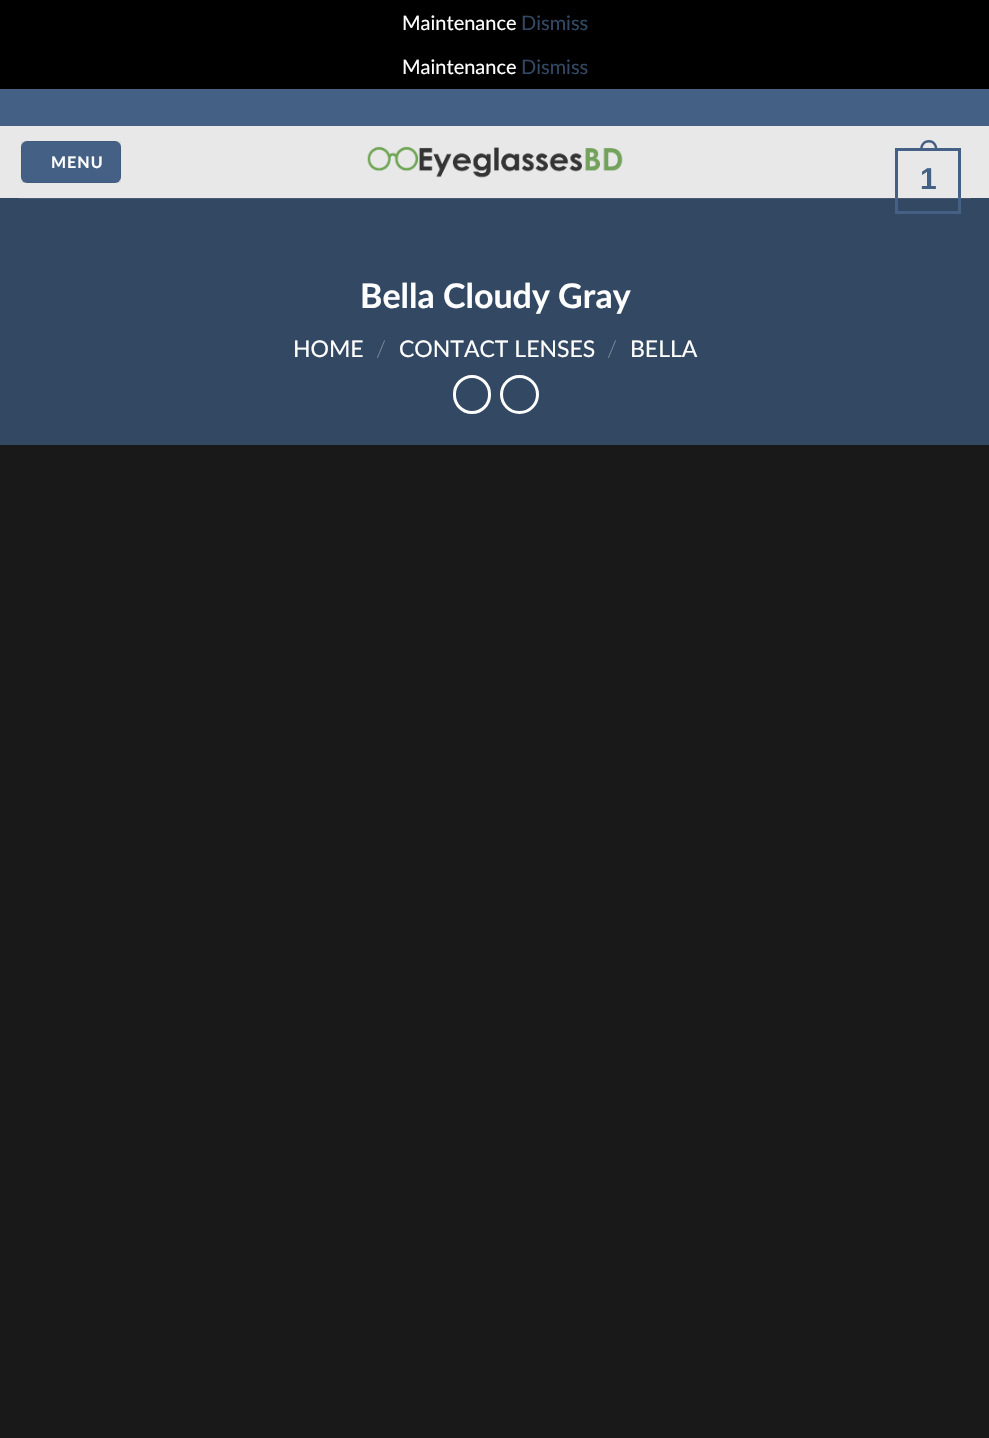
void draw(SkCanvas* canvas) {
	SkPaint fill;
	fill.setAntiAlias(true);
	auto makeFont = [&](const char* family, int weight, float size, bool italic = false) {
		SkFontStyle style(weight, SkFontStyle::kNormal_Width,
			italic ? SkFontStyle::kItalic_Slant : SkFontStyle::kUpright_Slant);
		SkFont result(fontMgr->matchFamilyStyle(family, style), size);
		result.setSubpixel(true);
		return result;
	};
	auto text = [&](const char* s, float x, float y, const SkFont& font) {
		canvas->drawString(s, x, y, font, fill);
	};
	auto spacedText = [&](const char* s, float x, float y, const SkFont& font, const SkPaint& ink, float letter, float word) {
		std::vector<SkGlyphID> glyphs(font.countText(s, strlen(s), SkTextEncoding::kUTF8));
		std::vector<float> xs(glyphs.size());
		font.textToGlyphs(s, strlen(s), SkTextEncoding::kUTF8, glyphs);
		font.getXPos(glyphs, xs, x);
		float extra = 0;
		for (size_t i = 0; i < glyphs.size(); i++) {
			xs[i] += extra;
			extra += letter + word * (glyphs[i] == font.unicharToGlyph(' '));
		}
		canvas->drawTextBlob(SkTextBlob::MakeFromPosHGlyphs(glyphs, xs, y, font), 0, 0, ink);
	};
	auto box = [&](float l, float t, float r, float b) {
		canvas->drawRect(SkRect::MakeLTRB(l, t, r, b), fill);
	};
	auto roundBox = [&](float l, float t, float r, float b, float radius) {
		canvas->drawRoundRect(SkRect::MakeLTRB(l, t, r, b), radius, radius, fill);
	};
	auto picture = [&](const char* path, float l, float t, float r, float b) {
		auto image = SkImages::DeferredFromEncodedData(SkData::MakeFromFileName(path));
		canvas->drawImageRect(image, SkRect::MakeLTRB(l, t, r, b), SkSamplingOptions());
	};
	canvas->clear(0xFF000000);
	fill.setColor(0xFF191919);
	box(0, 445, 989, 1438);
	fill.setColor(0xFF446084);
	box(0, 89, 989, 126);
	fill.setColor(0xFFE8E8E8);
	box(0, 126, 989, 198);
	fill.setColor(0xFF446084);
	roundBox(21, 141, 121, 183, 6);
	fill.setStyle(SkPaint::kStroke_Style);
	fill.setStrokeWidth(1);
	fill.setColor(0x0D000000);
	canvas->drawRect(SkRect::MakeLTRB(21.5f, 141.5f, 120.5f, 182.5f), fill);
	picture("image0.png", 367, 146, 623, 178);
	fill.setStyle(SkPaint::kFill_Style);
	fill.setColor(0xFF334863);
	box(0, 198, 989, 445);
	fill.setStyle(SkPaint::kStroke_Style);
	fill.setStrokeWidth(3);
	fill.setColor(0xFF446084);
	canvas->drawRect(SkRect::MakeLTRB(896.5f, 149.5f, 959.5f, 212.5f), fill);
	fill.setStyle(SkPaint::kFill_Style);
	canvas->drawPath(SkPathBuilder(SkPathFillType::kEvenOdd).moveTo(929, 140).cubicTo(934.5f, 140, 937.5f, 144.5f, 937.5f, 150).lineTo(920, 150).cubicTo(920, 144.5f, 923, 140, 929, 140).close().moveTo(929, 142.5f).cubicTo(933, 142.5f, 935, 146, 935, 150).lineTo(922.5f, 150).cubicTo(922.5f, 146, 924.5f, 142.5f, 929, 142.5f).close().detach(), fill);
	fill.setColor(0x1AF5F4F4);
	box(19, 198, 971, 199);
	fill.setStyle(SkPaint::kStroke_Style);
	fill.setColor(0xFFFFFFFF);
	canvas->drawRoundRect(SkRect::MakeLTRB(454.5f, 376.5f, 489.5f, 412.5f), 17.5f, 17.5f, fill);
	canvas->drawCircle(519.5f, 394.5f, 18, fill);
	auto font1 = makeFont("Lato", 400, 20);
	fill.setStyle(SkPaint::kFill_Style);
	text("Maintenance", 402, 30, font1);
	fill.setColor(0xFF334862);
	text("Dismiss", 521, 30, font1);
	fill.setColor(0xFFFFFFFF);
	text("Maintenance", 402, 74, font1);
	fill.setColor(0xFF334862);
	text("Dismiss", 521, 74, font1);
	auto font2 = makeFont("Lato", 700, 16);
	fill.setColor(0xFFFFFFFF);
	spacedText("MENU", 51, 168, font2, fill, 1, 0);
	auto font3 = makeFont("Liberation Sans", 700, 30);
	fill.setColor(0xFF446084);
	text("1", 920, 189, font3);
	auto font4 = makeFont("Lato", 700, 34);
	fill.setColor(0xFFFFFFFF);
	text("Bella Cloudy Gray", 360, 308, font4);
	auto font5 = makeFont("Lato", 400, 23);
	text("HOME", 293, 357, font5);
	auto font6 = makeFont("Lato", 300, 23);
	fill.setColor(0xFF7A889A);
	text("/", 376, 357, font6);
	fill.setColor(0xFFFFFFFF);
	text("CONTACT LENSES", 399, 357, font5);
	fill.setColor(0xFF7A889A);
	text("/", 607, 357, font6);
	fill.setColor(0xFFFFFFFF);
	text("BELLA", 630, 357, font5);
}
